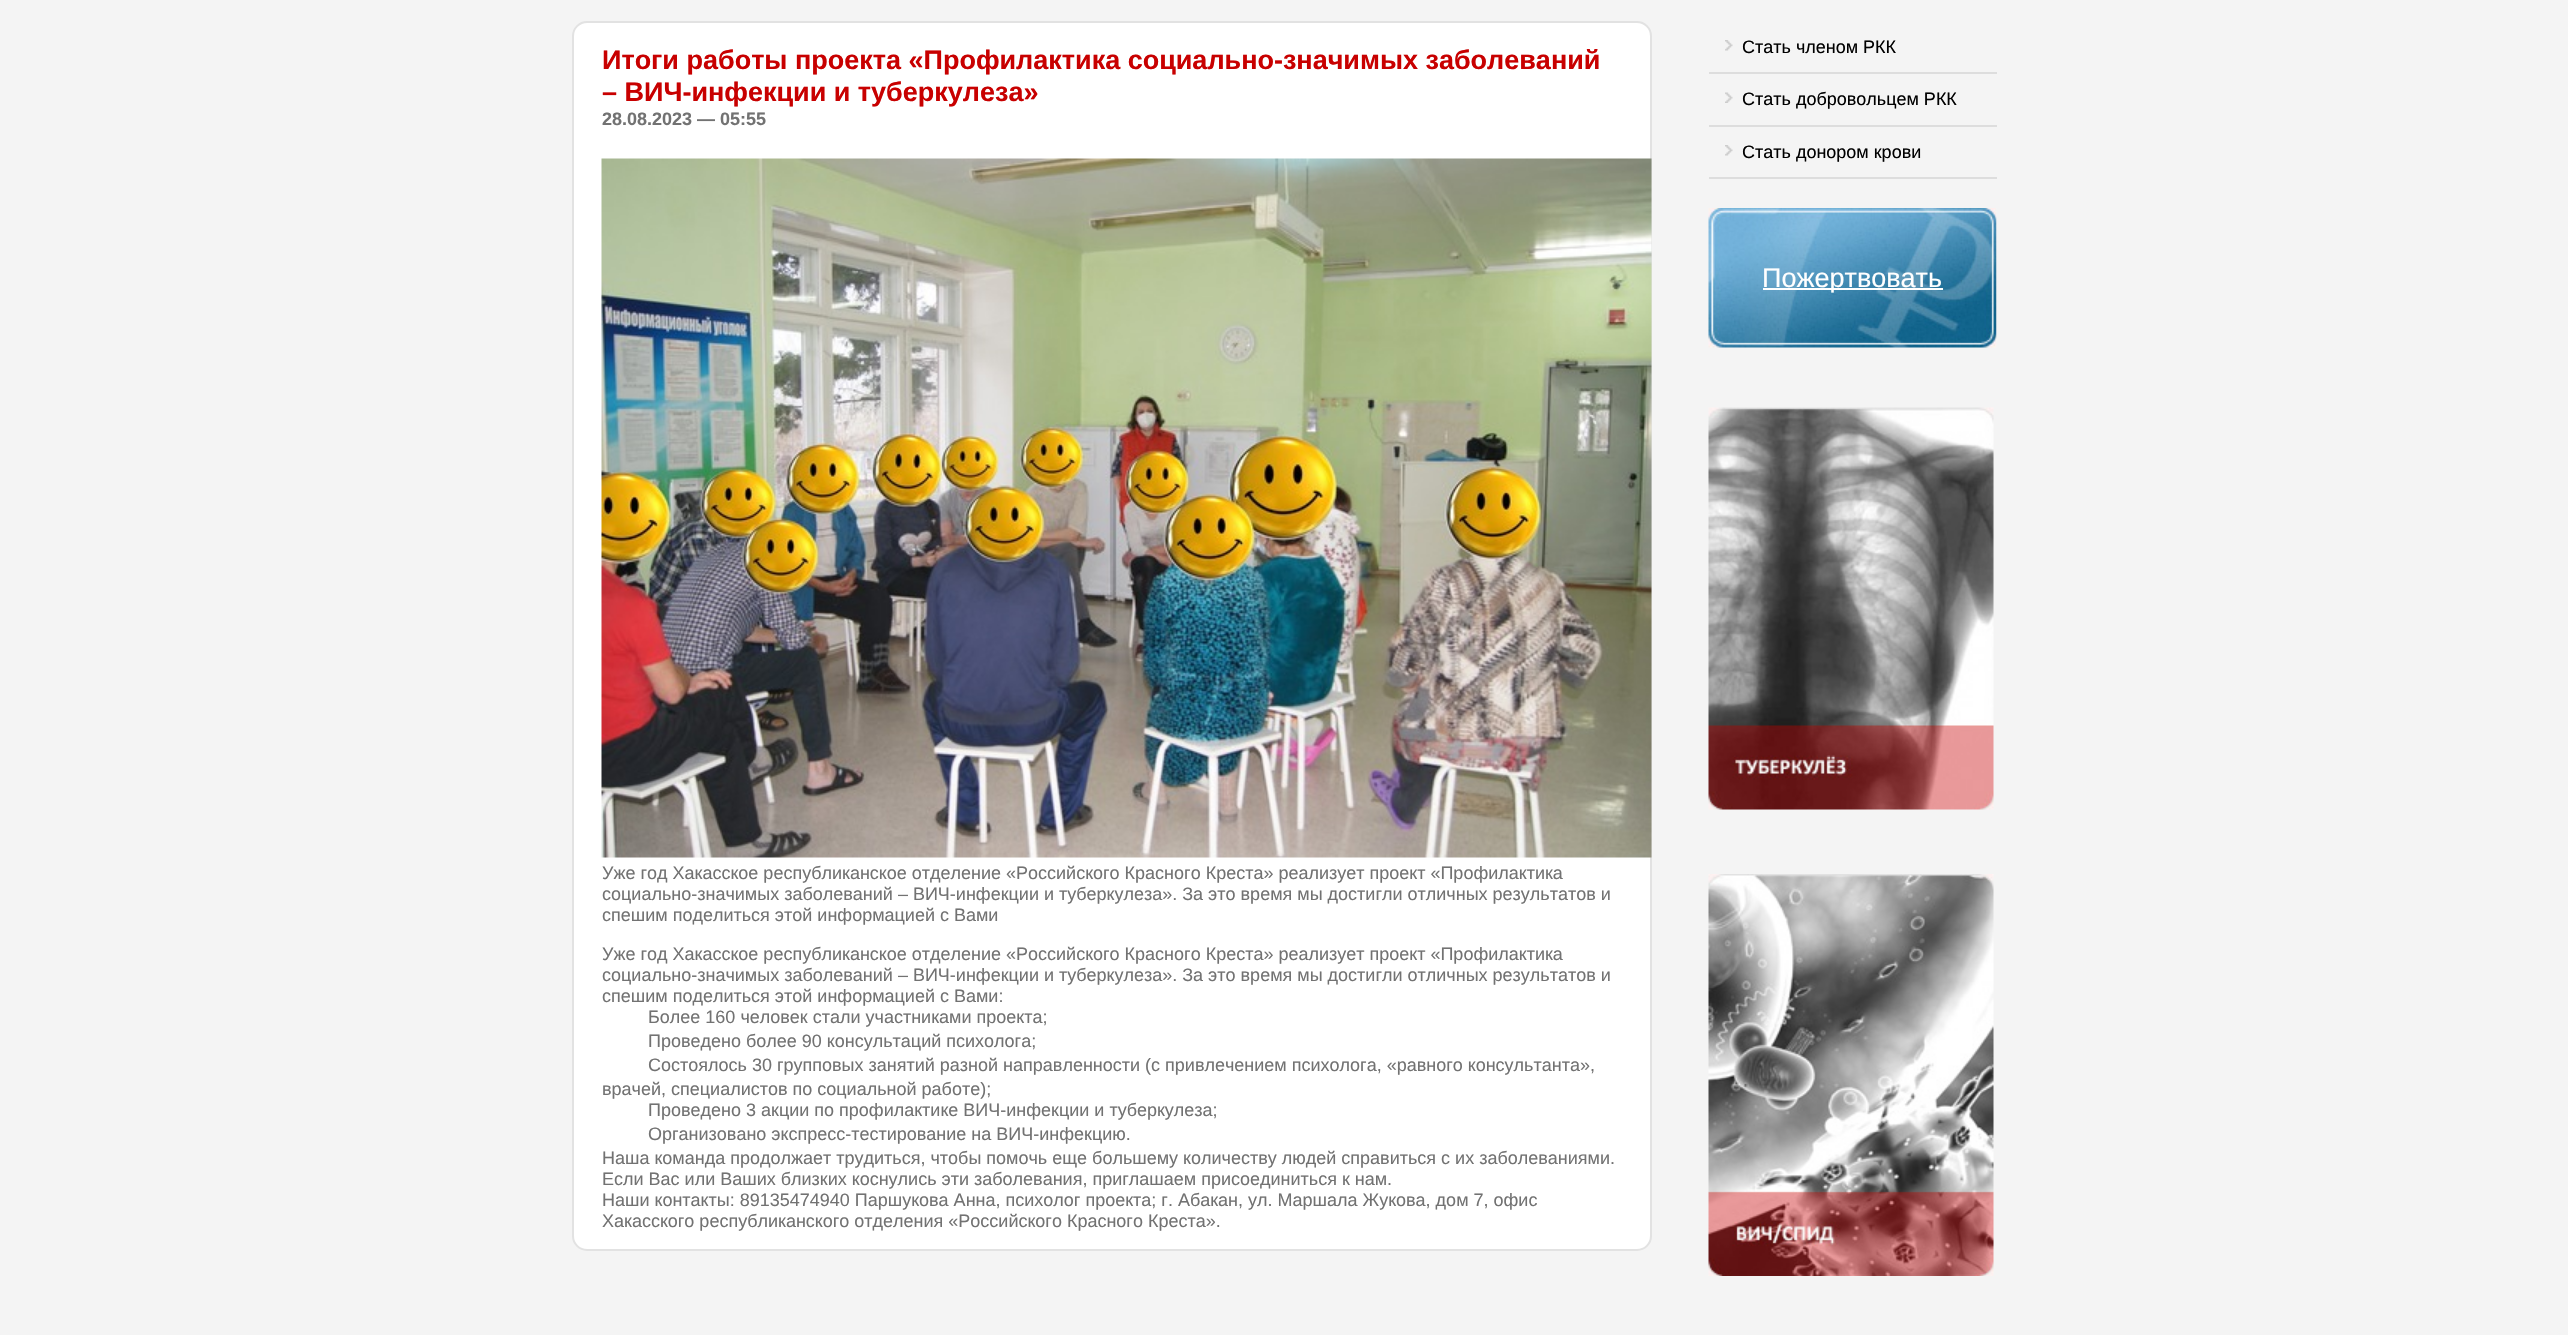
void draw(SkCanvas* canvas) {
	SkPaint fill;
	fill.setAntiAlias(true);
	auto makeFont = [&](const char* family, int weight, float size, bool italic = false) {
		SkFontStyle style(weight, SkFontStyle::kNormal_Width,
			italic ? SkFontStyle::kItalic_Slant : SkFontStyle::kUpright_Slant);
		SkFont result(fontMgr->matchFamilyStyle(family, style), size);
		result.setSubpixel(true);
		return result;
	};
	auto text = [&](const char* s, float x, float y, const SkFont& font) {
		canvas->drawString(s, x, y, font, fill);
	};
	auto box = [&](float l, float t, float r, float b) {
		canvas->drawRect(SkRect::MakeLTRB(l, t, r, b), fill);
	};
	auto picture = [&](const char* path, float l, float t, float r, float b) {
		auto image = SkImages::DeferredFromEncodedData(SkData::MakeFromFileName(path));
		canvas->drawImageRect(image, SkRect::MakeLTRB(l, t, r, b), SkSamplingOptions());
	};
	canvas->clear(0xFFF4F4F4);
	fill.setColor(0xFFFFFFFF);
	canvas->drawRoundRect(SkRect::MakeLTRB(573, 22, 1651, 1250), 14, 14, fill);
	fill.setStyle(SkPaint::kStroke_Style);
	fill.setStrokeWidth(2);
	fill.setColor(0xFFE2E2E2);
	canvas->drawRoundRect(SkRect::MakeLTRB(573, 22, 1651, 1250), 14, 14, fill);
	picture("image0.png", 601, 158, 1652, 858);
	fill.setStyle(SkPaint::kFill_Style);
	fill.setColor(0xFFDDDDDD);
	box(1709, 72, 1997, 74);
	picture("image1.png", 1725, 40, 1733, 51);
	box(1709, 125, 1997, 127);
	picture("image2.png", 1725, 92, 1733, 103);
	box(1709, 177, 1997, 179);
	picture("image1.png", 1725, 145, 1733, 156);
	picture("image3.png", 1708, 208, 1997, 348);
	fill.setColor(0xFFFFFFFF);
	box(1763, 288, 1943, 290);
	picture("image4.png", 1708, 407, 1994, 810);
	picture("image5.png", 1708, 874, 1994, 1276);
	auto font1 = makeFont("Liberation Sans", 700, 27);
	fill.setColor(0xFFC80000);
	text("Итоги работы проекта «Профилактика социально-значимых заболеваний", 602, 69, font1);
	text("– ВИЧ-инфекции и туберкулеза»", 602, 101, font1);
	auto font2 = makeFont("Liberation Sans", 700, 18);
	fill.setColor(0xFF727272);
	text("28.08.2023 — 05:55", 602, 125, font2);
	auto font3 = makeFont("Liberation Sans", 400, 18);
	text("Уже год Хакасское республиканское отделение «Российского Красного Креста» реализует проект «Профилактика", 602, 879, font3);
	text("социально-значимых заболеваний – ВИЧ-инфекции и туберкулеза». За это время мы достигли отличных результатов и", 602, 900, font3);
	text("спешим поделиться этой информацией с Вами", 602, 921, font3);
	text("Уже год Хакасское республиканское отделение «Российского Красного Креста» реализует проект «Профилактика", 602, 960, font3);
	text("социально-значимых заболеваний – ВИЧ-инфекции и туберкулеза». За это время мы достигли отличных результатов и", 602, 981, font3);
	text("спешим поделиться этой информацией с Вами:", 602, 1002, font3);
	text("Более 160 человек стали участниками проекта;", 648, 1023, font3);
	text("Проведено более 90 консультаций психолога;", 648, 1047, font3);
	text("Состоялось 30 групповых занятий разной направленности (с привлечением психолога, «равного консультанта»,", 648, 1071, font3);
	text("врачей, специалистов по социальной работе);", 602, 1095, font3);
	text("Проведено 3 акции по профилактике ВИЧ-инфекции и туберкулеза;", 648, 1116, font3);
	text("Организовано экспресс-тестирование на ВИЧ-инфекцию.", 648, 1140, font3);
	text("Наша команда продолжает трудиться, чтобы помочь еще большему количеству людей справиться с их заболеваниями.", 602, 1164, font3);
	text("Если Вас или Ваших близких коснулись эти заболевания, приглашаем присоединиться к нам.", 602, 1185, font3);
	text("Наши контакты: 89135474940 Паршукова Анна, психолог проекта; г. Абакан, ул. Маршала Жукова, дом 7, офис", 602, 1206, font3);
	text("Хакасского республиканского отделения «Российского Красного Креста».", 602, 1227, font3);
	fill.setColor(0xFF000000);
	text("Стать членом РКК", 1742, 53, font3);
	text("Стать добровольцем РКК", 1742, 105, font3);
	text("Стать донором крови", 1742, 158, font3);
	auto font4 = makeFont("Liberation Sans", 400, 27);
	fill.setColor(0xFFFFFFFF);
	text("Пожертвовать", 1762, 287, font4);
}
